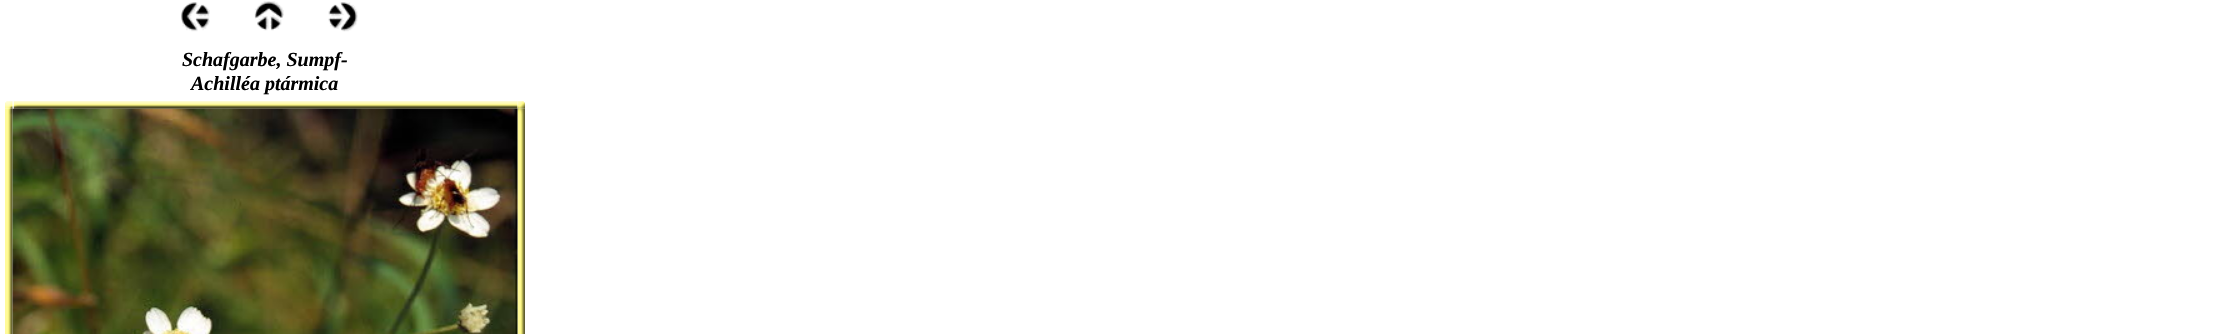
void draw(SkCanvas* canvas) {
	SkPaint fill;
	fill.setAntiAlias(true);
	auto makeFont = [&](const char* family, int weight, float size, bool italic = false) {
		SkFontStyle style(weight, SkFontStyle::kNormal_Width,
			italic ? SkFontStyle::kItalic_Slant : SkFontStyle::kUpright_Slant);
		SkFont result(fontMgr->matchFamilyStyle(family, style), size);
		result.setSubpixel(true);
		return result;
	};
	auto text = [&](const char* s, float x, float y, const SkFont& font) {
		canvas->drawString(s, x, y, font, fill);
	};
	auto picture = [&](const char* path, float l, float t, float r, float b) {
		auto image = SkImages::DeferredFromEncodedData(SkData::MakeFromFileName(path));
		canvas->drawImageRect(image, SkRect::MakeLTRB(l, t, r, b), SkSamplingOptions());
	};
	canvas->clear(0xFFFFFFFF);
	picture("image0.png", 181, 2, 210, 32);
	picture("image1.png", 254, 1, 284, 31);
	picture("image2.png", 328, 2, 358, 32);
	picture("image6.png", 5, 108, 13, 334);
	picture("image3.png", 5, 101, 13, 109);
	picture("image4.png", 13, 101, 518, 109);
	picture("image8.png", 517, 108, 525, 334);
	picture("image5.png", 517, 101, 525, 109);
	picture("image7.png", 12, 108, 518, 334);
	auto font1 = makeFont("Liberation Serif", 700, 20, true);
	fill.setColor(0xFF000000);
	text("Schafgarbe, Sumpf-", 182, 66, font1);
	text("Achilléa ptármica", 191, 90, font1);
}
